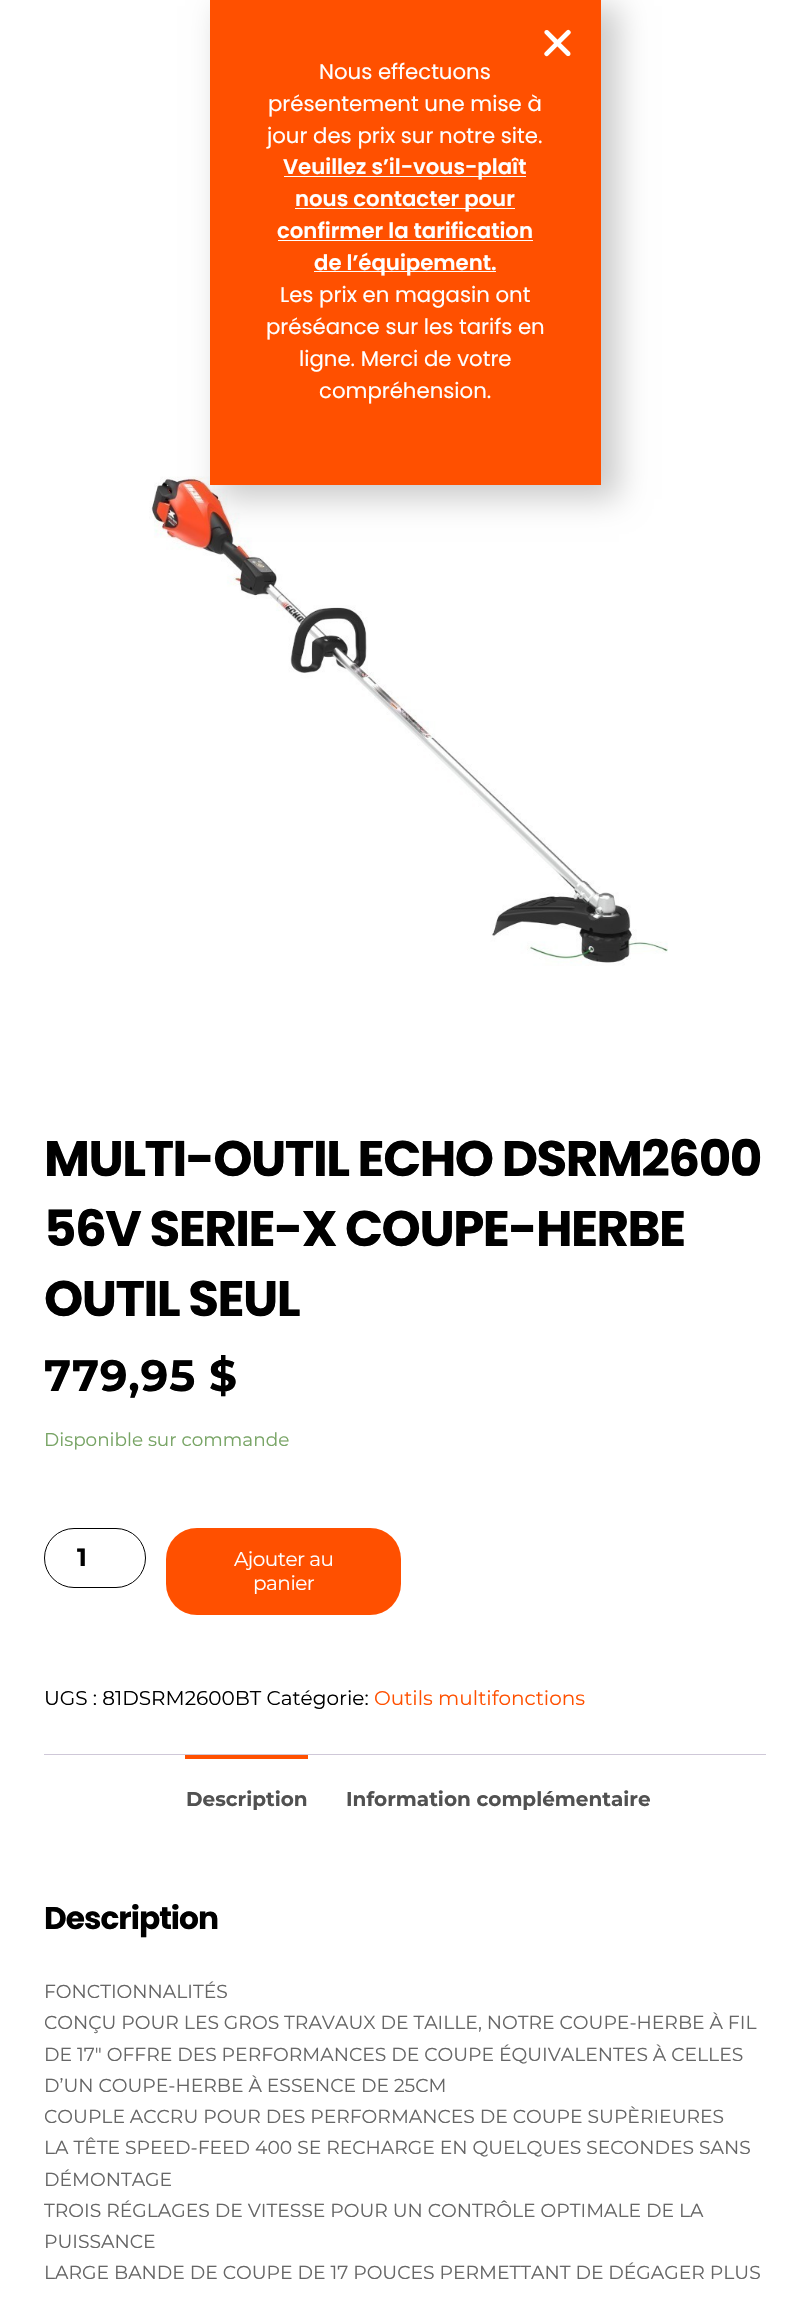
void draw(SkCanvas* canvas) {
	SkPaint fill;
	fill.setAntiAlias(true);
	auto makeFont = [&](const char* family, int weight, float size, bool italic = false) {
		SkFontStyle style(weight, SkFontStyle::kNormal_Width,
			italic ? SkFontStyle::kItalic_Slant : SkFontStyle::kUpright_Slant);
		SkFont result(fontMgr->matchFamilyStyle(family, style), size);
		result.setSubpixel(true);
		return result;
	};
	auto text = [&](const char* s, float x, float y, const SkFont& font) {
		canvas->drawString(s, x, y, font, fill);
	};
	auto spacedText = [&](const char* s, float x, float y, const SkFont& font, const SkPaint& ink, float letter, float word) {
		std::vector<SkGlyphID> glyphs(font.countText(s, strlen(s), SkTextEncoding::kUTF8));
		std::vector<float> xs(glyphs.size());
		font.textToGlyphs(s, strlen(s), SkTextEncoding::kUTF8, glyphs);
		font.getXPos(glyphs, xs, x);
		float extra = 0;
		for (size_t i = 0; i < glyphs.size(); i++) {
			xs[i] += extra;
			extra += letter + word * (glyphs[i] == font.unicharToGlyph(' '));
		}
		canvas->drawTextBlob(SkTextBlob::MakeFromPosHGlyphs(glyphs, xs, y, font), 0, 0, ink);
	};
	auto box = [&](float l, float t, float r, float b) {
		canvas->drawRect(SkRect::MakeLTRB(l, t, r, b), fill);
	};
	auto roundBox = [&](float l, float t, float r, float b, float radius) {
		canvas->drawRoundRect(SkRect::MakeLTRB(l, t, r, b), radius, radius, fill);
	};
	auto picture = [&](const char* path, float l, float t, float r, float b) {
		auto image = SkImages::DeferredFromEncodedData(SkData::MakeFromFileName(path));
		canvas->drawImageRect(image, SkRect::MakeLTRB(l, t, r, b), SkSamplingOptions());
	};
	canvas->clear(0xFFFFFFFF);
	picture("image1.png", 149, 476, 668, 966);
	fill.setColor(0x33000000);
	fill.setMaskFilter(SkMaskFilter::MakeBlur(kNormal_SkBlurStyle, 14.5f));
	canvas->drawRect(SkRect::MakeLTRB(220, 6, 619, 499), fill);
	fill.setMaskFilter(nullptr);
	fill.setColor(0xFFFF5000);
	box(210, 0, 601, 485);
	picture("image0.png", 544, 29, 571, 57);
	fill.setColor(0xFFFFFFFF);
	box(284, 176, 526, 177);
	box(295, 208, 515, 209);
	box(278, 240, 533, 241);
	box(314, 271, 496, 272);
	fill.setStyle(SkPaint::kStroke_Style);
	fill.setStrokeWidth(1);
	fill.setColor(0xFF000000);
	canvas->drawRoundRect(SkRect::MakeLTRB(44.5f, 1528.5f, 145.5f, 1587.5f), 29.5f, 29.5f, fill);
	fill.setStyle(SkPaint::kFill_Style);
	fill.setColor(0xFFFF5000);
	roundBox(166, 1528, 401, 1615, 31);
	fill.setColor(0xFFCFC8D8);
	box(44, 1754, 766, 1755);
	fill.setColor(0xFFFF5000);
	box(185, 1755, 308, 1759);
	auto font1 = makeFont("Poppins", 400, 21.25f);
	fill.setColor(0xFFFFFFFF);
	text("Nous effectuons", 319, 79, font1);
	text("présentement une mise à", 268, 111, font1);
	text("jour des prix sur notre site.", 267, 143, font1);
	auto font2 = makeFont("Poppins", 600, 21.25f);
	text("Veuillez s’il-vous-plaît", 283, 174, font2);
	text("nous contacter pour", 295, 206, font2);
	text("confirmer la tarification", 277, 238, font2);
	text("de l’équipement.", 314, 270, font2);
	text("Les prix en magasin ont", 280, 302, font1);
	text("préséance sur les tarifs en", 266, 334, font1);
	text("ligne. Merci de votre", 299, 366, font1);
	text("compréhension.", 319, 398, font1);
	auto font3 = makeFont("Poppins", 700, 50);
	fill.setColor(0xFF000000);
	spacedText("MULTI-OUTIL ECHO DSRM2600", 44, 1176, font3, fill, -1.5f, 0);
	spacedText("56V SERIE-X COUPE-HERBE", 44, 1246, font3, fill, -1.5f, 0);
	spacedText("OUTIL SEUL", 44, 1316, font3, fill, -1.5f, 0);
	auto font4 = makeFont("Montserrat", 700, 43.75f);
	spacedText("779,95 $", 44, 1391, font4, fill, 0.75f, 0);
	auto font5 = makeFont("Montserrat", 400, 18.4f);
	fill.setColor(0xFF77A464);
	text("Disponible sur commande", 44, 1446, font5);
	auto font6 = makeFont("Montserrat", 700, 25);
	fill.setColor(0xFF000000);
	text("1", 77, 1566, font6);
	auto font7 = makeFont("Montserrat", 400, 20);
	fill.setColor(0xFFFFFFFF);
	spacedText("Ajouter au", 234, 1566, font7, fill, -0.5f, 0);
	spacedText("panier", 253, 1590, font7, fill, -0.5f, 0);
	fill.setColor(0xFF000000);
	text("UGS : 81DSRM2600BT Catégorie:", 44, 1705, font7);
	fill.setColor(0xFFFF5000);
	text("Outils multifonctions", 374, 1705, font7);
	auto font8 = makeFont("Montserrat", 700, 20);
	fill.setColor(0xFF515151);
	text("Description", 186, 1806, font8);
	text("Information complémentaire", 346, 1806, font8);
	auto font9 = makeFont("Poppins", 700, 31.25f);
	fill.setColor(0xFF000000);
	spacedText("Description", 44, 1929, font9, fill, -1, 0);
	auto font10 = makeFont("Montserrat", 400, 18.75f);
	fill.setColor(0xFF666666);
	text("FONCTIONNALITÉS", 44, 1998, font10);
	text("CONÇU POUR LES GROS TRAVAUX DE TAILLE, NOTRE COUPE-HERBE À FIL", 44, 2029, font10);
	text("DE 17″ OFFRE DES PERFORMANCES DE COUPE ÉQUIVALENTES À CELLES", 44, 2061, font10);
	text("D’UN COUPE-HERBE À ESSENCE DE 25CM", 44, 2092, font10);
	text("COUPLE ACCRU POUR DES PERFORMANCES DE COUPE SUPÈRIEURES", 44, 2123, font10);
	text("LA TÊTE SPEED-FEED 400 SE RECHARGE EN QUELQUES SECONDES SANS", 44, 2154, font10);
	text("DÉMONTAGE", 44, 2186, font10);
	text("TROIS RÉGLAGES DE VITESSE POUR UN CONTRÔLE OPTIMALE DE LA", 44, 2217, font10);
	text("PUISSANCE", 44, 2248, font10);
	text("LARGE BANDE DE COUPE DE 17 POUCES PERMETTANT DE DÉGAGER PLUS", 44, 2279, font10);
}
